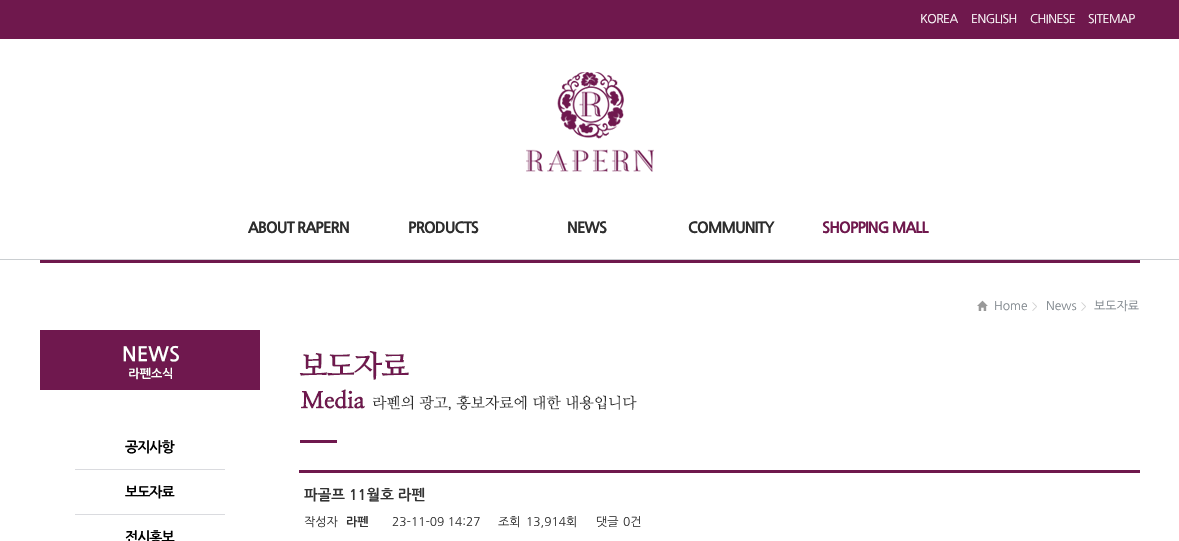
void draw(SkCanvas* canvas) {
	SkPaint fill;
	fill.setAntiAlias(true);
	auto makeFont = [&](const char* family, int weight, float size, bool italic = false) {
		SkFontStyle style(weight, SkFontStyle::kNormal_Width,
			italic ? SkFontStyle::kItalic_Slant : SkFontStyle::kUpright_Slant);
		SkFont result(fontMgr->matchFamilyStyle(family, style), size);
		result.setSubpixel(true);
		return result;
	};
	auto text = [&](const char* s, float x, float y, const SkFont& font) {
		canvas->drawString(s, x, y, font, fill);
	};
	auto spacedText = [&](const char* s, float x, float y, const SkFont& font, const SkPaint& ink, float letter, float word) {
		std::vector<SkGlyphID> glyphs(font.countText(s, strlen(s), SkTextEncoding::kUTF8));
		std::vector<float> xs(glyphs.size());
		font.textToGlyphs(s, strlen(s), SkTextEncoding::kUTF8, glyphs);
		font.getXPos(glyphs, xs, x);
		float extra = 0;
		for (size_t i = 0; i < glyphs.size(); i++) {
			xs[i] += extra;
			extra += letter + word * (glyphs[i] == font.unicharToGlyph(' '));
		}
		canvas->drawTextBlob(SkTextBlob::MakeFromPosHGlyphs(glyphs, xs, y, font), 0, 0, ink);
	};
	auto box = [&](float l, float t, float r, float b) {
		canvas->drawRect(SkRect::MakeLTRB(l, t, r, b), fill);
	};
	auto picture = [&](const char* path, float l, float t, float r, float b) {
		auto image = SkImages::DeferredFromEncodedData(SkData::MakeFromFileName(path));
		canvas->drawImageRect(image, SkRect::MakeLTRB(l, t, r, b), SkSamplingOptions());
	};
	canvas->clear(0xFFFFFFFF);
	fill.setColor(0xFF6F184D);
	box(0, 0, 1179, 39);
	picture("image0.png", 526, 72, 654, 172);
	fill.setColor(0xFFCACED1);
	box(0, 259, 1179, 260);
	fill.setColor(0xFF6F184D);
	box(40, 260, 1140, 263);
	picture("image1.png", 977, 300, 988, 311);
	picture("image2.png", 40, 330, 260, 390);
	fill.setColor(0xFFDADBDF);
	box(75, 469, 225, 470);
	box(75, 514, 225, 515);
	picture("image3.png", 299, 351, 637, 443);
	fill.setColor(0xFF6F184D);
	box(299, 470, 1140, 473);
	auto font1 = makeFont("NanumGothic", 400, 12);
	fill.setColor(0xFFFFFFFF);
	spacedText("KOREA", 920, 23, font1, fill, -0.5f, 0);
	spacedText("ENGLISH", 971, 23, font1, fill, -0.5f, 0);
	spacedText("CHINESE", 1030, 23, font1, fill, -0.5f, 0);
	spacedText("SITEMAP", 1088, 23, font1, fill, -0.5f, 0);
	auto font2 = makeFont("NanumGothic", 800, 15);
	fill.setColor(0xFF2D2D2D);
	spacedText("ABOUT RAPERN", 248, 233, font2, fill, -1, 0);
	spacedText("PRODUCTS", 408, 233, font2, fill, -1, 0);
	spacedText("NEWS", 567, 233, font2, fill, -1, 0);
	spacedText("COMMUNITY", 688, 233, font2, fill, -1, 0);
	fill.setColor(0xFF6F184D);
	spacedText("SHOPPING MALL", 822, 233, font2, fill, -1, 0);
	fill.setColor(0xFF80878D);
	text("Home", 994, 310, font1);
	auto font3 = makeFont("NanumGothic", 400, 10);
	fill.setColor(0xFFCCCCCC);
	text(">", 1032, 310, font3);
	fill.setColor(0xFF80878D);
	text("News", 1046, 310, font1);
	fill.setColor(0xFFCCCCCC);
	text(">", 1081, 310, font3);
	fill.setColor(0xFF80878D);
	text("보도자료", 1094, 310, font1);
	auto font4 = makeFont("NanumGothic", 700, 14);
	fill.setColor(0xFF000000);
	spacedText("공지사항", 125, 452, font4, fill, -1, 0);
	spacedText("보도자료", 125, 497, font4, fill, -1, 0);
	spacedText("전시홍보", 125, 542, font4, fill, -1, 0);
	auto font5 = makeFont("NanumGothic", 700, 14.5f);
	fill.setColor(0xFF333333);
	text("파골프 11월호 라펜", 304, 500, font5);
	text("작성자", 304, 526, font1);
	auto font6 = makeFont("NanumGothic", 700, 12);
	text("라펜", 346, 526, font6);
	text("23-11-09 14:27", 392, 526, font1);
	text("조회", 498, 526, font1);
	text("13,914회", 526, 526, font1);
	text("댓글", 596, 526, font1);
	text("0건", 623, 526, font1);
}
